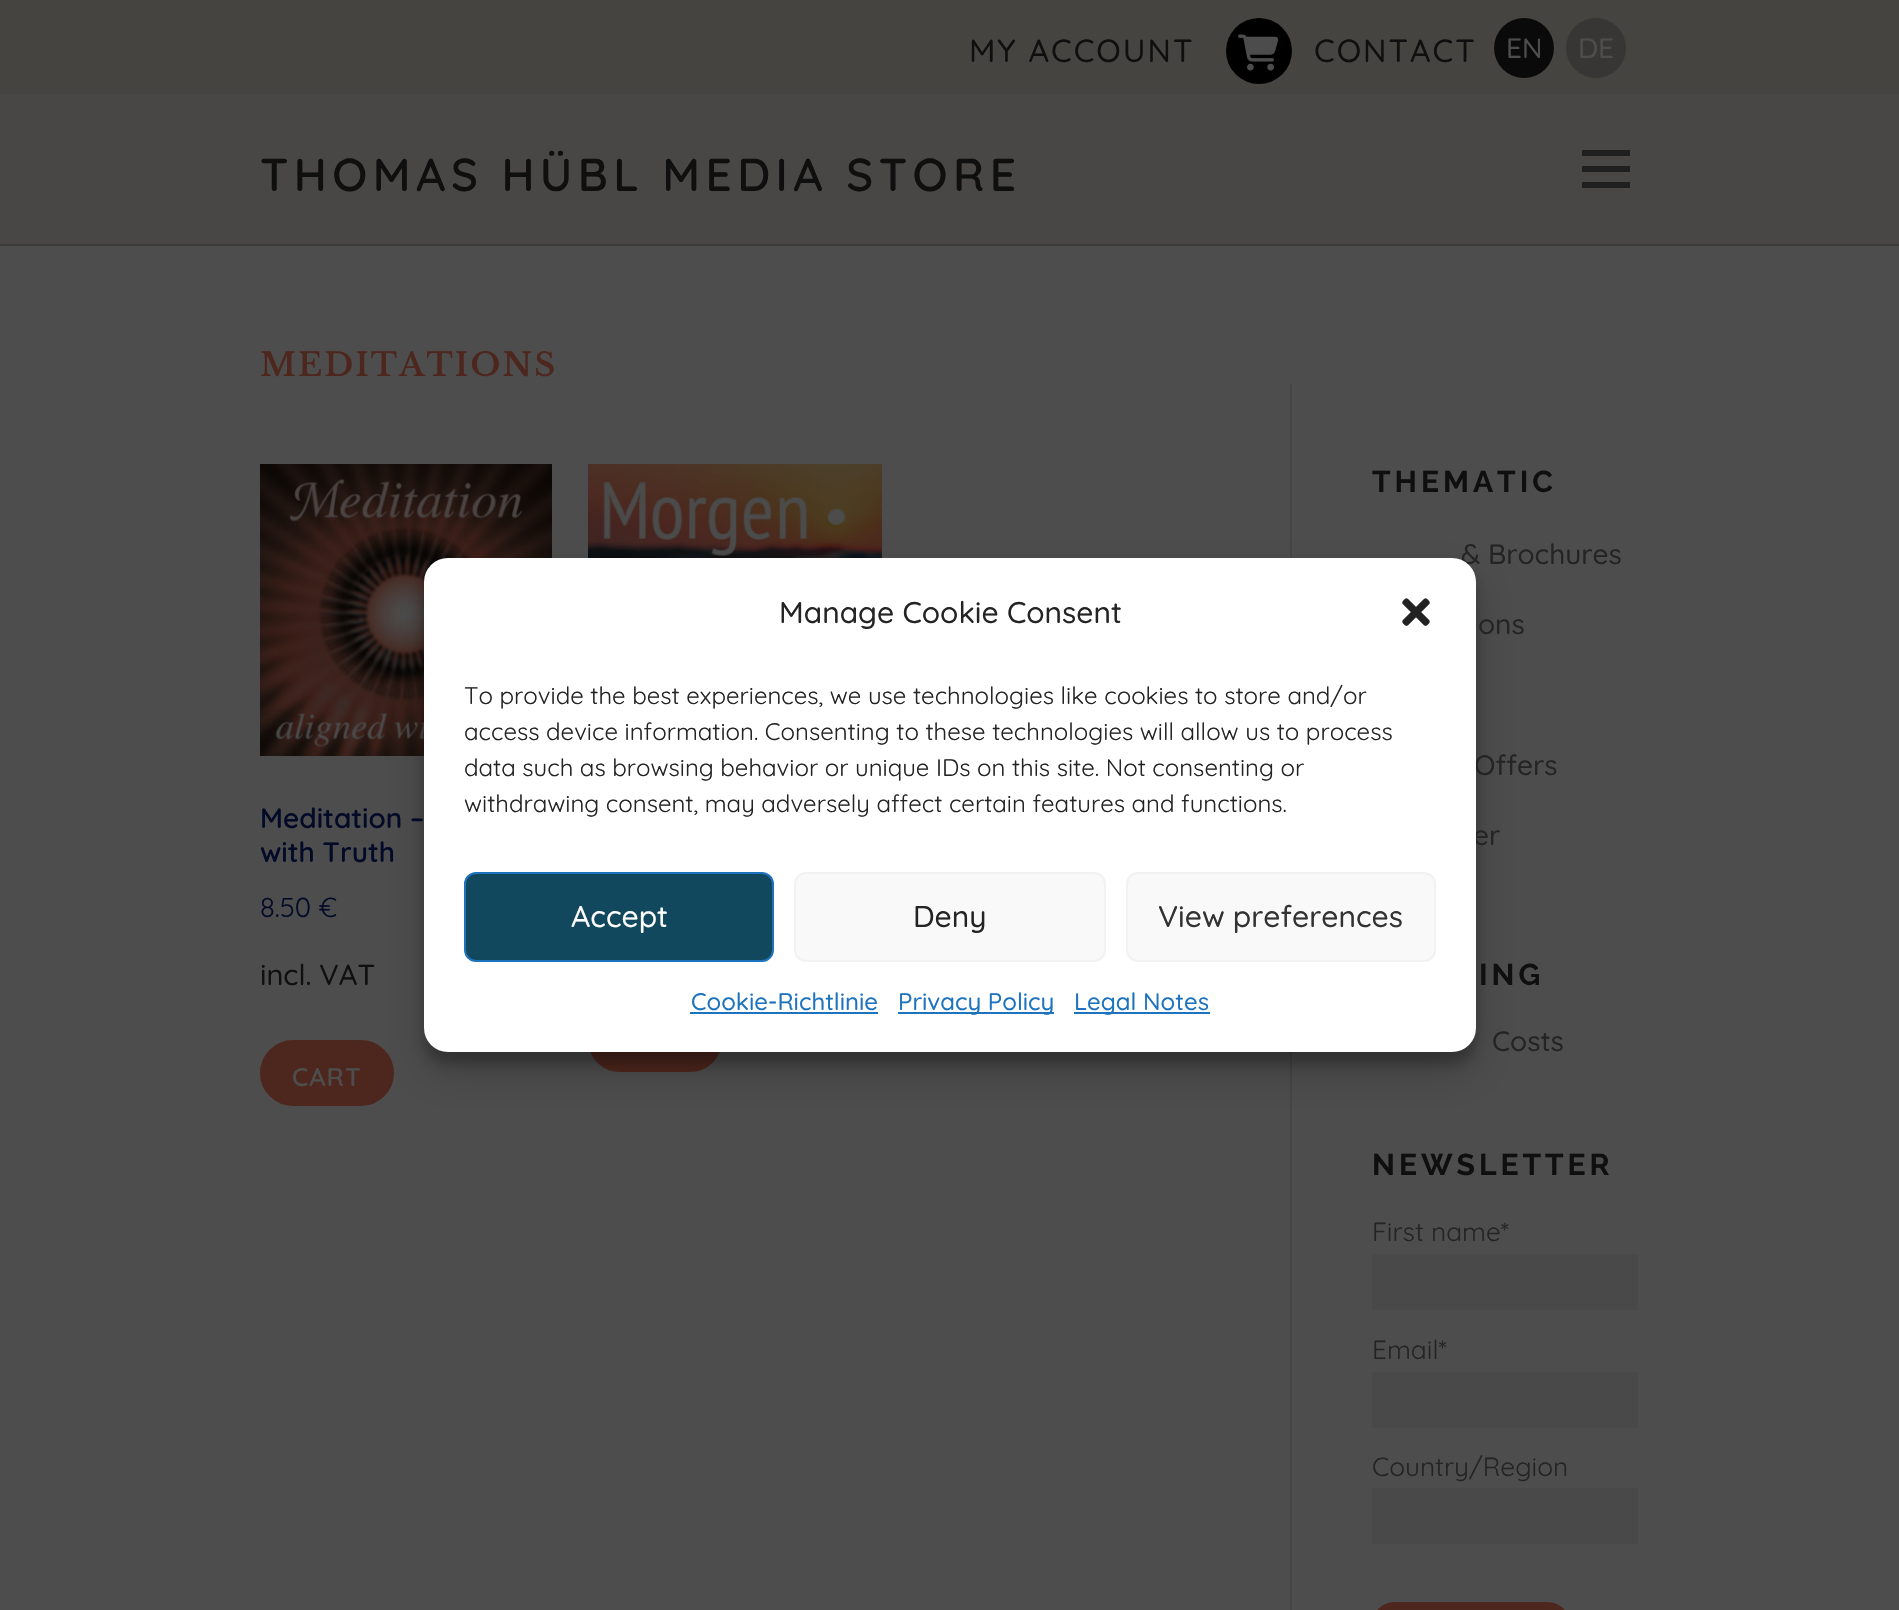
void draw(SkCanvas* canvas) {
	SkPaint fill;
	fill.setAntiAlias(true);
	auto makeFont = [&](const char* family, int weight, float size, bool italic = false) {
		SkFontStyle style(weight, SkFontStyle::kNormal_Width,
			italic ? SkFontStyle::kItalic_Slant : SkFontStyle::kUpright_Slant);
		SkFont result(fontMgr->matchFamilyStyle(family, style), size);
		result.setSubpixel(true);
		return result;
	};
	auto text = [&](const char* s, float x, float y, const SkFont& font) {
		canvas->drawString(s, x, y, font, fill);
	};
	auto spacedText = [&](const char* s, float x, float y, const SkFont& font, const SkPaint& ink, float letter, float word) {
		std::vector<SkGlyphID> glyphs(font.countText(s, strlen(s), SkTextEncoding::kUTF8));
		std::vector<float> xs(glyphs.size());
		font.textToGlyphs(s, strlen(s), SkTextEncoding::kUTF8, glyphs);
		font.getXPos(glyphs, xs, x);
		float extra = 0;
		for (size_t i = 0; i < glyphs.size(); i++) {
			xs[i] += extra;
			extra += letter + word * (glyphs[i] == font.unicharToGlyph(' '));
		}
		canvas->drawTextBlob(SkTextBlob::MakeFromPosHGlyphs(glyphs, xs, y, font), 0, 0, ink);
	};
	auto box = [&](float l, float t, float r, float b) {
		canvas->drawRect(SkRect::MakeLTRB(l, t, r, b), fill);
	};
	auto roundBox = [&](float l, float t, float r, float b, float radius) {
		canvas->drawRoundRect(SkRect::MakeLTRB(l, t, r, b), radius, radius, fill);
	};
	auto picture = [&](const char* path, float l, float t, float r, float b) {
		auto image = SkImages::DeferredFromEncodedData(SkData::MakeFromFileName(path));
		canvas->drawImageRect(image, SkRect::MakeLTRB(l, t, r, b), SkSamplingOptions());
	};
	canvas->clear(0xFF4D4D4D);
	fill.setColor(0xFF464441);
	box(0, 0, 1899, 94);
	fill.setColor(0xFF000000);
	canvas->drawCircle(1259, 51, 33, fill);
	picture("image0.png", 1238, 34, 1279, 71);
	fill.setColor(0xFF0A0A0A);
	canvas->drawCircle(1524, 48, 30, fill);
	fill.setColor(0xFF383634);
	canvas->drawCircle(1596, 48, 30, fill);
	fill.setColor(0xFF494746);
	box(0, 94, 1899, 244);
	fill.setColor(0xFF3B3B38);
	box(0, 244, 1899, 246);
	fill.setColor(0xFF1F1F1F);
	box(1582, 166, 1630, 172);
	box(1582, 150, 1630, 156);
	box(1582, 182, 1630, 188);
	picture("image1.png", 260, 464, 552, 756);
	fill.setColor(0xFF4D261D);
	canvas->drawRoundRect(SkRect::MakeLTRB(261, 1041, 393, 1105), 32, 32, fill);
	fill.setStyle(SkPaint::kStroke_Style);
	fill.setStrokeWidth(2);
	canvas->drawRoundRect(SkRect::MakeLTRB(261, 1041, 393, 1105), 32, 32, fill);
	picture("image2.png", 588, 464, 882, 558);
	fill.setStyle(SkPaint::kFill_Style);
	canvas->drawRoundRect(SkRect::MakeLTRB(589, 1009, 721, 1071), 31, 31, fill);
	fill.setStyle(SkPaint::kStroke_Style);
	canvas->drawRoundRect(SkRect::MakeLTRB(589, 1009, 721, 1071), 31, 31, fill);
	fill.setStyle(SkPaint::kFill_Style);
	fill.setColor(0xFF464646);
	box(1290, 384, 1292, 1610);
	fill.setColor(0xFF494949);
	box(1372, 1254, 1638, 1310);
	box(1372, 1372, 1638, 1428);
	box(1372, 1488, 1638, 1544);
	fill.setColor(0xFF4D261D);
	roundBox(1372, 1602, 1570, 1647, 37);
	fill.setColor(0x3B000000);
	fill.setMaskFilter(SkMaskFilter::MakeBlur(kNormal_SkBlurStyle, 6));
	canvas->drawRoundRect(SkRect::MakeLTRB(424, 570, 1476, 1064), 24, 24, fill);
	fill.setMaskFilter(nullptr);
	fill.setColor(0x30000000);
	fill.setMaskFilter(SkMaskFilter::MakeBlur(kNormal_SkBlurStyle, 20));
	canvas->drawRoundRect(SkRect::MakeLTRB(424, 578, 1476, 1072), 24, 24, fill);
	fill.setMaskFilter(nullptr);
	auto font1 = makeFont("Quicksand", 500, 32);
	fill.setColor(0xFF0F0F0F);
	spacedText("MY ACCOUNT", 969, 62, font1, fill, 2, 0);
	spacedText("CONTACT", 1314, 62, font1, fill, 2, 0);
	auto font2 = makeFont("Quicksand", 500, 28);
	fill.setColor(0xFF4D4D4D);
	text("EN", 1506, 58, font2);
	text("DE", 1578, 58, font2);
	auto font3 = makeFont("Quicksand", 600, 46);
	fill.setColor(0xFF0F0F0F);
	spacedText("THOMAS HÜBL MEDIA STORE", 260, 191, font3, fill, 5.4f, 0);
	auto font4 = makeFont("Libre Baskerville", 600, 32);
	fill.setColor(0xFF4D261D);
	spacedText("MEDITATIONS", 260, 376, font4, fill, 2, 0);
	auto font5 = makeFont("Quicksand", 600, 28);
	fill.setColor(0xFF020A27);
	text("Meditation –", 260, 828, font5);
	text("with Truth", 260, 862, font5);
	auto font6 = makeFont("Quicksand", 400, 27.5f);
	text("8.50 €", 260, 917, font6);
	auto font7 = makeFont("Quicksand", 500, 29);
	fill.setColor(0xFF0F0F0F);
	text("incl. VAT", 260, 985, font7);
	auto font8 = makeFont("Quicksand", 600, 25.5f);
	fill.setColor(0xFF4D4D4D);
	spacedText("CART", 292, 1086, font8, fill, 1, 0);
	auto font9 = makeFont("Raleway", 700, 30);
	fill.setColor(0xFF0F0F0F);
	spacedText("THEMATIC", 1372, 492, font9, fill, 4, 0);
	fill.setColor(0xFF242424);
	text("& Brochures", 1461, 564, font2);
	text("ons", 1478, 634, font2);
	text("Offers", 1474, 775, font2);
	text("er", 1473, 845, font2);
	fill.setColor(0xFF0F0F0F);
	spacedText("ING", 1479, 985, font9, fill, 4, 0);
	fill.setColor(0xFF242424);
	text("Costs", 1492, 1051, font2);
	fill.setColor(0xFF0F0F0F);
	spacedText("NEWSLETTER", 1372, 1175, font9, fill, 4, 0);
	auto font10 = makeFont("Quicksand", 400, 26.25f);
	fill.setColor(0xFF242424);
	text("First name*", 1372, 1241, font10);
	text("Email*", 1372, 1359, font10);
	text("Country/Region", 1372, 1476, font10);
	fill.setColor(0xFFFFFFFF);
	roundBox(424, 558, 1476, 1052, 24);
	auto font11 = makeFont("Quicksand", 500, 30);
	fill.setColor(0xFF242424);
	text("Manage Cookie Consent", 779, 623, font11);
	picture("image3.png", 1402, 598, 1430, 626);
	auto font12 = makeFont("Quicksand", 400, 24);
	text("To provide the best experiences, we use technologies like cookies to store and/or", 464, 704, font12);
	text("access device information. Consenting to these technologies will allow us to process", 464, 740, font12);
	text("data such as browsing behavior or unique IDs on this site. Not consenting or", 464, 776, font12);
	text("withdrawing consent, may adversely affect certain features and functions.", 464, 812, font12);
	fill.setColor(0xFF12485E);
	canvas->drawRoundRect(SkRect::MakeLTRB(465, 873, 773, 961), 11, 11, fill);
	fill.setStyle(SkPaint::kStroke_Style);
	fill.setColor(0xFF1E73BE);
	canvas->drawRoundRect(SkRect::MakeLTRB(465, 873, 773, 961), 11, 11, fill);
	fill.setStyle(SkPaint::kFill_Style);
	fill.setColor(0xFFFFFFFF);
	text("Accept", 571, 927, font11);
	fill.setColor(0xFFF9F9F9);
	canvas->drawRoundRect(SkRect::MakeLTRB(795, 873, 1105, 961), 11, 11, fill);
	fill.setStyle(SkPaint::kStroke_Style);
	fill.setColor(0xFFF2F2F2);
	canvas->drawRoundRect(SkRect::MakeLTRB(795, 873, 1105, 961), 11, 11, fill);
	fill.setStyle(SkPaint::kFill_Style);
	fill.setColor(0xFF242424);
	text("Deny", 913, 927, font11);
	fill.setColor(0xFFF9F9F9);
	canvas->drawRoundRect(SkRect::MakeLTRB(1127, 873, 1435, 961), 11, 11, fill);
	fill.setStyle(SkPaint::kStroke_Style);
	fill.setColor(0xFFF2F2F2);
	canvas->drawRoundRect(SkRect::MakeLTRB(1127, 873, 1435, 961), 11, 11, fill);
	fill.setStyle(SkPaint::kFill_Style);
	fill.setColor(0xFF333333);
	text("View preferences", 1158, 927, font11);
	auto font13 = makeFont("Quicksand", 500, 24);
	fill.setColor(0xFF1E73BE);
	text("Cookie-Richtlinie", 691, 1010, font13);
	box(690, 1012, 878, 1014);
	box(898, 1012, 1054, 1014);
	text("Privacy Policy", 898, 1010, font13);
	box(1074, 1012, 1210, 1014);
	text("Legal Notes", 1074, 1010, font13);
}
